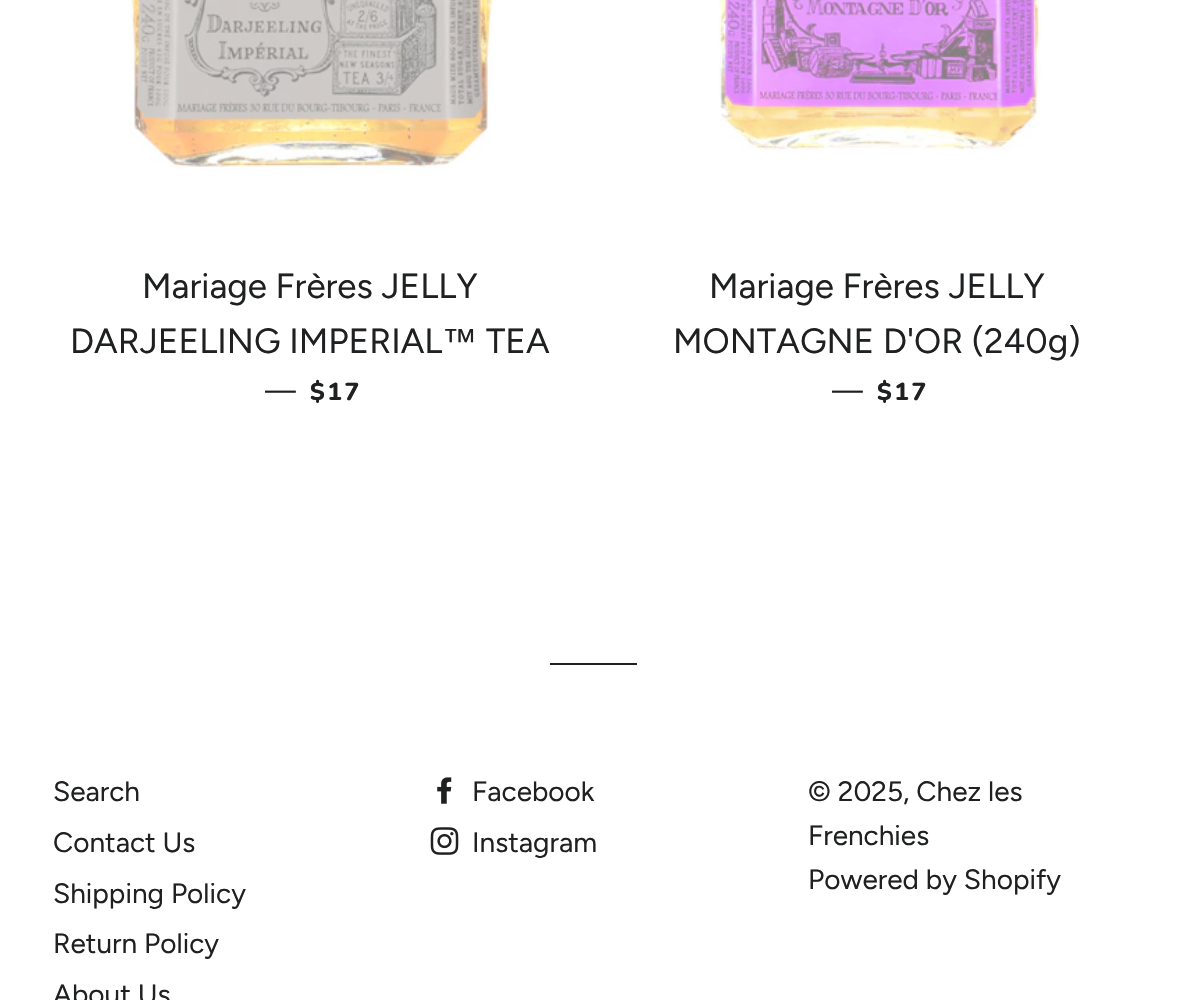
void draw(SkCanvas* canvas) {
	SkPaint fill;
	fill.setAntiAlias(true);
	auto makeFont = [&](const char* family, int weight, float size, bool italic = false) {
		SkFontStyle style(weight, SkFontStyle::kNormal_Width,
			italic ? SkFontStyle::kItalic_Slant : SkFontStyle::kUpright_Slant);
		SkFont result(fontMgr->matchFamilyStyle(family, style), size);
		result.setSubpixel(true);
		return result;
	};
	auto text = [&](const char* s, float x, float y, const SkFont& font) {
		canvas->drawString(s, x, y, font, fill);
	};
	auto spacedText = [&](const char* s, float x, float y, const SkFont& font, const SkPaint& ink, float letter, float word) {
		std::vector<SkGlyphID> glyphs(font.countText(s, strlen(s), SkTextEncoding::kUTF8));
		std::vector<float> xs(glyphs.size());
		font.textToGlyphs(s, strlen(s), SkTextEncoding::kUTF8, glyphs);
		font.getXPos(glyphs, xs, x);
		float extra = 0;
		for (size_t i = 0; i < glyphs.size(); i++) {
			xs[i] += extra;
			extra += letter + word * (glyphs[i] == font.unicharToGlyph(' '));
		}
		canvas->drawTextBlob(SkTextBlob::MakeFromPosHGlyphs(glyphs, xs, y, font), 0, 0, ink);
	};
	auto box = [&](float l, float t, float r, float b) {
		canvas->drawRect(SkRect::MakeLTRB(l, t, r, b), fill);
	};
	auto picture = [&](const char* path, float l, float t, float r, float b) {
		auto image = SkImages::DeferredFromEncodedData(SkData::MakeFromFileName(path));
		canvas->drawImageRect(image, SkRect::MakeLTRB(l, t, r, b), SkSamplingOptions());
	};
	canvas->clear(0xFFFFFFFF);
	picture("image0.png", 130, 0, 493, 170);
	picture("image1.png", 718, 0, 1041, 150);
	fill.setColor(0xFF1F2021);
	box(550, 663, 637, 665);
	picture("image2.png", 437, 777, 452, 804);
	picture("image3.png", 430, 827, 459, 855);
	auto font1 = makeFont("Figtree", 400, 35);
	text("Mariage Frères JELLY", 142, 298, font1);
	text("DARJEELING IMPERIAL", 70, 353, font1);
	auto font2 = makeFont("Liberation Sans", 400, 35);
	text("™", 442, 353, font2);
	text("TEA", 486, 353, font1);
	auto font3 = makeFont("Figtree", 400, 28);
	text("—", 265, 400, font3);
	auto font4 = makeFont("Nunito", 800, 24.5f);
	spacedText("$17", 310, 400, font4, fill, 2.5f, 0);
	text("Mariage Frères JELLY", 709, 298, font1);
	text("MONTAGNE D'OR (240g)", 673, 353, font1);
	text("—", 832, 400, font3);
	spacedText("$17", 877, 400, font4, fill, 2.5f, 0);
	text("Search", 53, 801, font3);
	text("Contact Us", 53, 852, font3);
	text("Shipping Policy", 53, 903, font3);
	text("Return Policy", 53, 953, font3);
	text("About Us", 53, 1004, font3);
	text("Facebook", 472, 801, font3);
	text("Instagram", 472, 852, font3);
	text("© 2025, Chez les", 808, 801, font3);
	text("Frenchies", 808, 845, font3);
	text("Powered by Shopify", 808, 889, font3);
}
